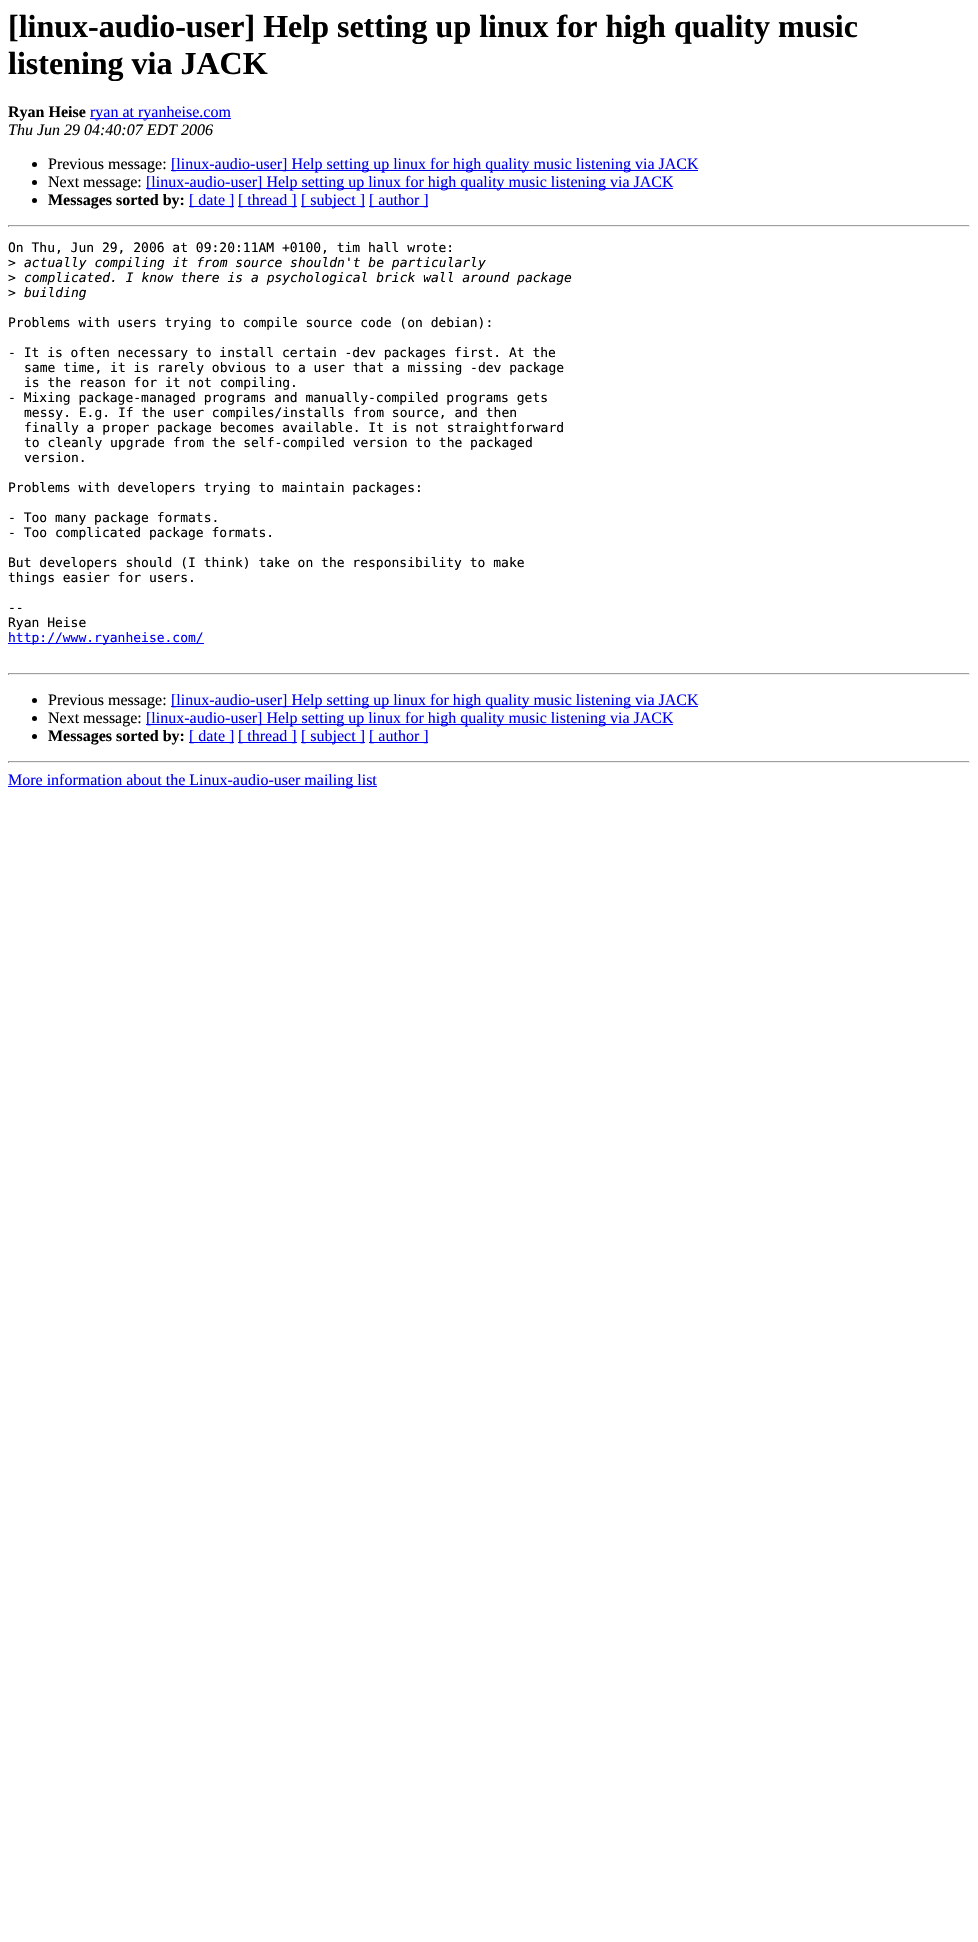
void draw(SkCanvas* canvas) {
	SkPaint fill;
	fill.setAntiAlias(true);
	auto makeFont = [&](const char* family, int weight, float size, bool italic = false) {
		SkFontStyle style(weight, SkFontStyle::kNormal_Width,
			italic ? SkFontStyle::kItalic_Slant : SkFontStyle::kUpright_Slant);
		SkFont result(fontMgr->matchFamilyStyle(family, style), size);
		result.setSubpixel(true);
		return result;
	};
	auto text = [&](const char* s, float x, float y, const SkFont& font) {
		canvas->drawString(s, x, y, font, fill);
	};
	auto box = [&](float l, float t, float r, float b) {
		canvas->drawRect(SkRect::MakeLTRB(l, t, r, b), fill);
	};
	canvas->clear(0xFFFFFFFF);
	fill.setColor(0xFF0000EE);
	box(90, 118, 231, 119);
	fill.setColor(0xFF000000);
	canvas->drawCircle(34.5f, 164.5f, 2.5f, fill);
	fill.setColor(0xFF0000EE);
	box(171, 170, 698, 171);
	fill.setColor(0xFF000000);
	canvas->drawCircle(34.5f, 182.5f, 2.5f, fill);
	fill.setColor(0xFF0000EE);
	box(146, 188, 673, 189);
	fill.setColor(0xFF000000);
	canvas->drawCircle(34.5f, 200.5f, 2.5f, fill);
	fill.setColor(0xFF0000EE);
	box(189, 206, 234, 207);
	box(238, 206, 297, 207);
	box(301, 206, 365, 207);
	box(369, 206, 428, 207);
	fill.setColor(0xFF9F9F9F);
	box(8, 225, 970, 226);
	fill.setColor(0xFFEEEEEE);
	box(969, 225, 970, 227);
	box(8, 226, 970, 227);
	fill.setColor(0xFF9F9F9F);
	box(8, 225, 9, 227);
	fill.setColor(0xFF0000EE);
	box(8, 643, 204, 644);
	fill.setColor(0xFF9F9F9F);
	box(8, 673, 970, 674);
	fill.setColor(0xFFEEEEEE);
	box(969, 673, 970, 675);
	box(8, 674, 970, 675);
	fill.setColor(0xFF9F9F9F);
	box(8, 673, 9, 675);
	fill.setColor(0xFF000000);
	canvas->drawCircle(34.5f, 700.5f, 2.5f, fill);
	fill.setColor(0xFF0000EE);
	box(171, 706, 698, 707);
	fill.setColor(0xFF000000);
	canvas->drawCircle(34.5f, 718.5f, 2.5f, fill);
	fill.setColor(0xFF0000EE);
	box(146, 724, 673, 725);
	fill.setColor(0xFF000000);
	canvas->drawCircle(34.5f, 736.5f, 2.5f, fill);
	fill.setColor(0xFF0000EE);
	box(189, 742, 234, 743);
	box(238, 742, 297, 743);
	box(301, 742, 365, 743);
	box(369, 742, 428, 743);
	fill.setColor(0xFF9F9F9F);
	box(8, 761, 970, 762);
	fill.setColor(0xFFEEEEEE);
	box(969, 761, 970, 763);
	box(8, 762, 970, 763);
	fill.setColor(0xFF9F9F9F);
	box(8, 761, 9, 763);
	fill.setColor(0xFF0000EE);
	box(8, 786, 377, 787);
	auto font1 = makeFont("Liberation Serif", 700, 32);
	fill.setColor(0xFF000000);
	text("[linux-audio-user] Help setting up linux for high quality music", 8, 37, font1);
	text("listening via JACK", 8, 74, font1);
	auto font2 = makeFont("Liberation Serif", 700, 16);
	text("Ryan Heise", 8, 117, font2);
	auto font3 = makeFont("Liberation Serif", 400, 16);
	fill.setColor(0xFF0000EE);
	text("ryan at ryanheise.com", 90, 117, font3);
	auto font4 = makeFont("Liberation Serif", 400, 16, true);
	fill.setColor(0xFF000000);
	text("Thu Jun 29 04:40:07 EDT 2006", 8, 135, font4);
	text("Previous message:", 48, 169, font3);
	fill.setColor(0xFF0000EE);
	text("[linux-audio-user] Help setting up linux for high quality music listening via JACK", 171, 169, font3);
	fill.setColor(0xFF000000);
	text("Next message:", 48, 187, font3);
	fill.setColor(0xFF0000EE);
	text("[linux-audio-user] Help setting up linux for high quality music listening via JACK", 146, 187, font3);
	fill.setColor(0xFF000000);
	text("Messages sorted by:", 48, 205, font2);
	fill.setColor(0xFF0000EE);
	text("[ date ]", 189, 205, font3);
	text("[ thread ]", 238, 205, font3);
	text("[ subject ]", 301, 205, font3);
	text("[ author ]", 369, 205, font3);
	auto font5 = makeFont("DejaVu Sans Mono", 400, 13);
	fill.setColor(0xFF000000);
	text("On Thu, Jun 29, 2006 at 09:20:11AM +0100, tim hall wrote:", 8, 252, font5);
	text(">", 8, 267, font5);
	auto font6 = makeFont("DejaVu Sans Mono", 400, 13, true);
	text("actually compiling it from source shouldn't be particularly", 24, 267, font6);
	text(">", 8, 282, font5);
	text("complicated. I know there is a psychological brick wall around package", 24, 282, font6);
	text(">", 8, 297, font5);
	text("building", 24, 297, font6);
	text("Problems with users trying to compile source code (on debian):", 8, 327, font5);
	text("- It is often necessary to install certain -dev packages first. At the", 8, 357, font5);
	text("same time, it is rarely obvious to a user that a missing -dev package", 24, 372, font5);
	text("is the reason for it not compiling.", 24, 387, font5);
	text("- Mixing package-managed programs and manually-compiled programs gets", 8, 402, font5);
	text("messy. E.g. If the user compiles/installs from source, and then", 24, 417, font5);
	text("finally a proper package becomes available. It is not straightforward", 24, 432, font5);
	text("to cleanly upgrade from the self-compiled version to the packaged", 24, 447, font5);
	text("version.", 24, 462, font5);
	text("Problems with developers trying to maintain packages:", 8, 492, font5);
	text("- Too many package formats.", 8, 522, font5);
	text("- Too complicated package formats.", 8, 537, font5);
	text("But developers should (I think) take on the responsibility to make", 8, 567, font5);
	text("things easier for users.", 8, 582, font5);
	text("--", 8, 612, font5);
	text("Ryan Heise", 8, 627, font5);
	fill.setColor(0xFF0000EE);
	text("http://www.ryanheise.com/", 8, 642, font5);
	fill.setColor(0xFF000000);
	text("Previous message:", 48, 705, font3);
	fill.setColor(0xFF0000EE);
	text("[linux-audio-user] Help setting up linux for high quality music listening via JACK", 171, 705, font3);
	fill.setColor(0xFF000000);
	text("Next message:", 48, 723, font3);
	fill.setColor(0xFF0000EE);
	text("[linux-audio-user] Help setting up linux for high quality music listening via JACK", 146, 723, font3);
	fill.setColor(0xFF000000);
	text("Messages sorted by:", 48, 741, font2);
	fill.setColor(0xFF0000EE);
	text("[ date ]", 189, 741, font3);
	text("[ thread ]", 238, 741, font3);
	text("[ subject ]", 301, 741, font3);
	text("[ author ]", 369, 741, font3);
	text("More information about the Linux-audio-user mailing list", 8, 785, font3);
}
